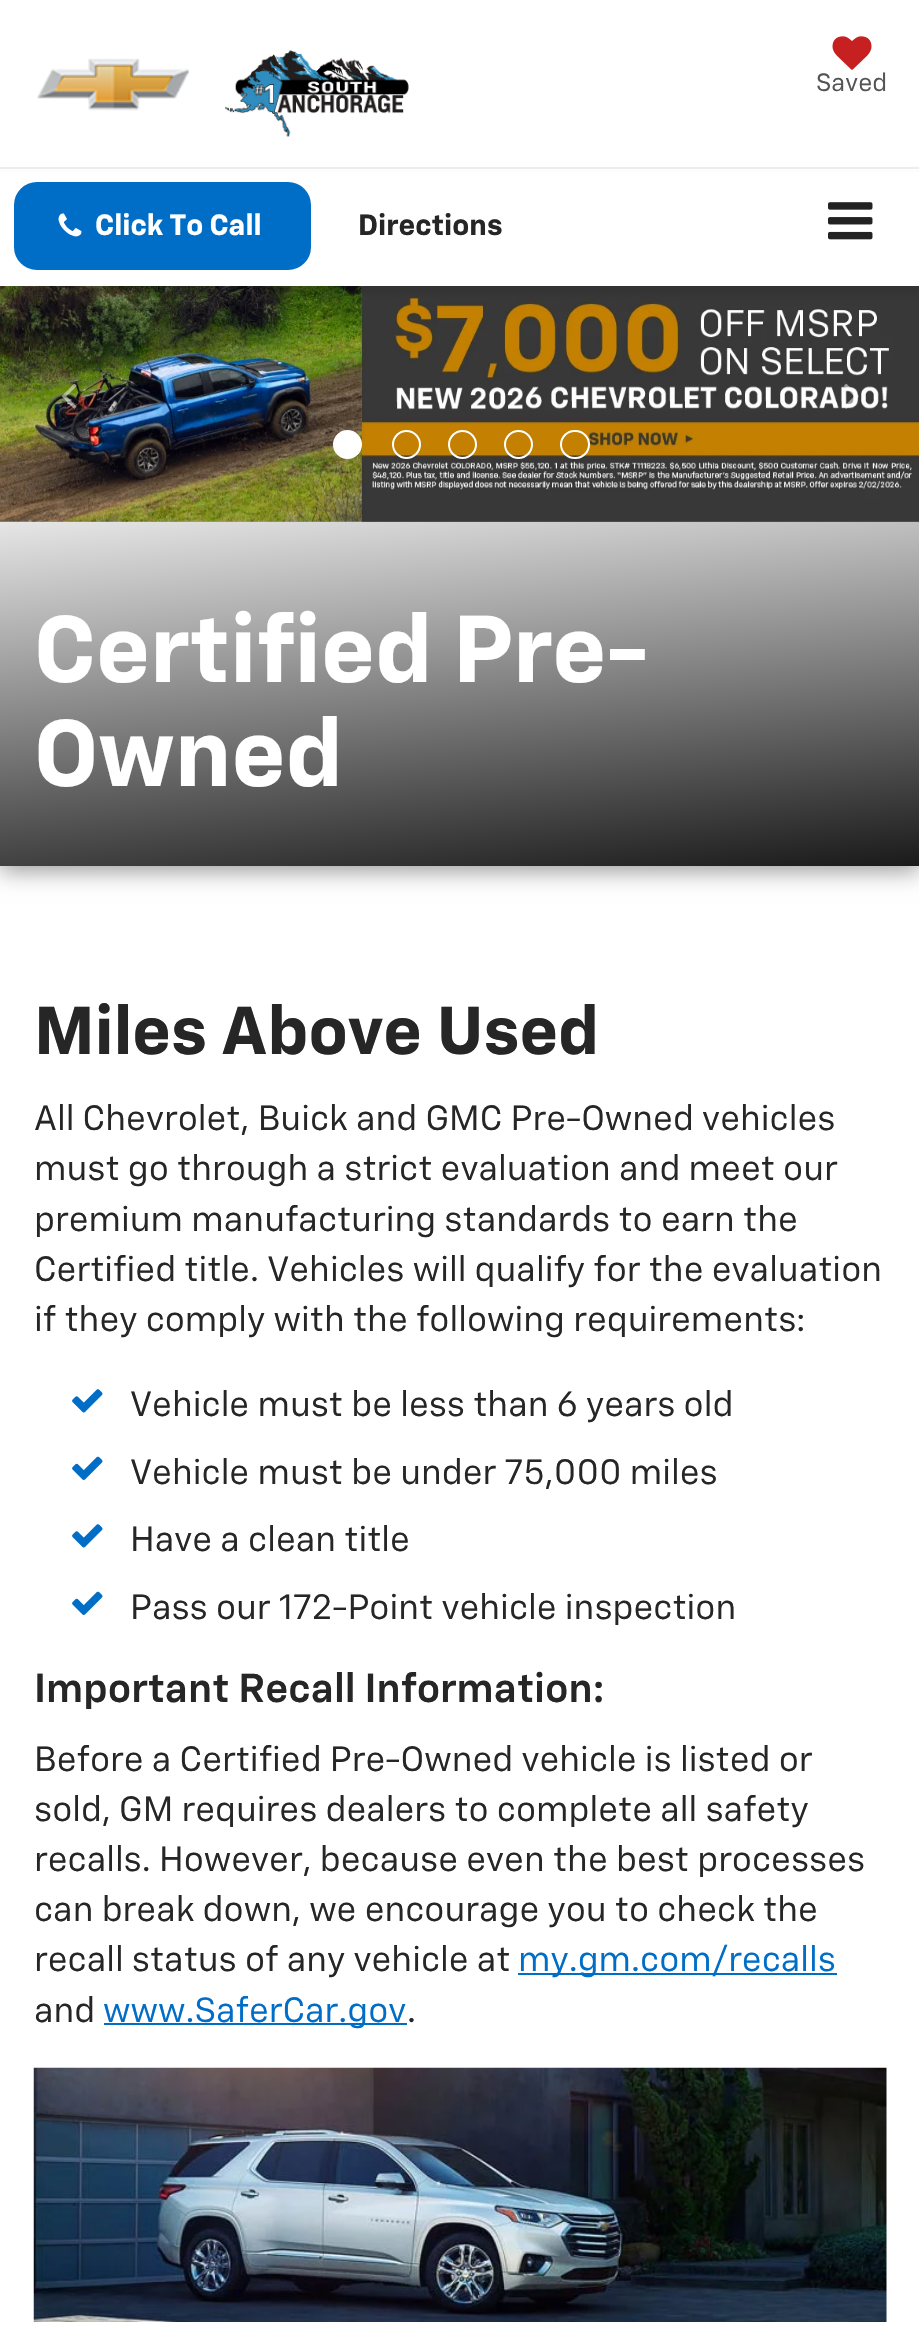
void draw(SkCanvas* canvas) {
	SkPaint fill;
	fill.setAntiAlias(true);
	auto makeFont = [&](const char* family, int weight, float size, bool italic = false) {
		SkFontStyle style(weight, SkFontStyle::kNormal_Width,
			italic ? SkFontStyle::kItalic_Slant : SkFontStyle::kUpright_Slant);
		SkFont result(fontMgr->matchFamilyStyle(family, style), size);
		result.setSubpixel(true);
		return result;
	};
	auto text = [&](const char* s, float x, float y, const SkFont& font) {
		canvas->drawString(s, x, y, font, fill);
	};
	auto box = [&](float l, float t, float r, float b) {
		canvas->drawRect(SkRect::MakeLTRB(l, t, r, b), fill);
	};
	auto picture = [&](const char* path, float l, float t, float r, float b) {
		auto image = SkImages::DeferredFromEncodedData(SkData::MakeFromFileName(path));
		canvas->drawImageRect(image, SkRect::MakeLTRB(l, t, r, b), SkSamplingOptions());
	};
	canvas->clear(0xFFFFFFFF);
	picture("image0.png", 37, 58, 189, 111);
	picture("image1.png", 225, 50, 409, 137);
	picture("image2.png", 832, 36, 872, 70);
	fill.setColor(0xFFEEEEEE);
	box(0, 167, 919, 169);
	fill.setColor(0x66000000);
	fill.setMaskFilter(SkMaskFilter::MakeBlur(kNormal_SkBlurStyle, 11));
	canvas->drawRect(SkRect::MakeLTRB(0, 527, 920, 871), fill);
	fill.setMaskFilter(nullptr);
	picture("image5.png", 0, 286, 919, 522);
	fill.setColor(0x1A000000);
	fill.setMaskFilter(SkMaskFilter::MakeBlur(kNormal_SkBlurStyle, 3.5f));
	canvas->drawRect(SkRect::MakeLTRB(0, 176, 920, 293), fill);
	fill.setMaskFilter(nullptr);
	fill.setColor(0xFFFFFFFF);
	box(0, 172, 919, 286);
	fill.setColor(0xFF006DC7);
	canvas->drawRoundRect(SkRect::MakeLTRB(16.5f, 184.5f, 308.5f, 267.5f), 20.5f, 20.5f, fill);
	fill.setStyle(SkPaint::kStroke_Style);
	fill.setStrokeWidth(5);
	canvas->drawRoundRect(SkRect::MakeLTRB(16.5f, 184.5f, 308.5f, 267.5f), 20.5f, 20.5f, fill);
	picture("image3.png", 58, 213, 82, 237);
	picture("image4.png", 828, 202, 873, 240);
	picture("image6.png", 61, 383, 77, 409);
	picture("image7.png", 844, 383, 859, 409);
	fill.setStyle(SkPaint::kFill_Style);
	fill.setColor(0xFFFFFFFF);
	canvas->drawCircle(347.5f, 444.5f, 13.5f, fill);
	fill.setStyle(SkPaint::kStroke_Style);
	fill.setStrokeWidth(2);
	canvas->drawCircle(347.5f, 444.5f, 13.5f, fill);
	canvas->drawCircle(406.5f, 444.5f, 13.5f, fill);
	canvas->drawCircle(462.5f, 444.5f, 13.5f, fill);
	canvas->drawCircle(518.5f, 444.5f, 13.5f, fill);
	canvas->drawRoundRect(SkRect::MakeLTRB(561, 431, 589, 458), 13.5f, 13.5f, fill);
	fill.setStyle(SkPaint::kFill_Style);
	{
		const SkColor colors[] = {0xFFE6E6E6, 0xFF1A1A1A};
		const float stops[] = {0, 1};
		const SkPoint ends[] = {{442, 483}, {479, 905}};
		fill.setShader(SkGradientShader::MakeLinear(ends, colors, stops, 2, SkTileMode::kClamp));
		fill.setAlpha(255);
	}
	box(0, 522, 919, 866);
	picture("image8.png", 72, 1389, 103, 1413);
	picture("image9.png", 72, 1456, 103, 1480);
	picture("image8.png", 72, 1524, 103, 1548);
	picture("image9.png", 72, 1591, 103, 1615);
	fill.setShader(nullptr);
	fill.setColor(0xFF006DC7);
	box(518, 1973, 837, 1975);
	box(104, 2023, 407, 2025);
	picture("image10.png", 33, 2067, 887, 2322);
	auto font1 = makeFont("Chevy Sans", 400, 25);
	fill.setColor(0xFF555555);
	text("Saved", 816, 91, font1);
	auto font2 = makeFont("Chevy Sans", 700, 29.25f);
	fill.setColor(0xFFFFFFFF);
	text("Click To Call", 95, 235, font2);
	fill.setColor(0xFF262626);
	text("Directions", 358, 235, font2);
	auto font3 = makeFont("Chevy Sans", 700, 94.5f);
	fill.setColor(0xFFFFFFFF);
	text("Certified Pre-", 34, 682, font3);
	text("Owned", 34, 786, font3);
	auto font4 = makeFont("Chevy Sans", 700, 67.5f);
	fill.setColor(0xFF262626);
	text("Miles Above Used", 34, 1054, font4);
	auto font5 = makeFont("Chevy Sans", 400, 35.1f);
	text("All Chevrolet, Buick and GMC Pre-Owned vehicles", 34, 1130, font5);
	text("must go through a strict evaluation and meet our", 34, 1180, font5);
	text("premium manufacturing standards to earn the", 34, 1231, font5);
	text("Certified title. Vehicles will qualify for the evaluation", 34, 1281, font5);
	text("if they comply with the following requirements:", 34, 1331, font5);
	text("Vehicle must be less than 6 years old", 130, 1416, font5);
	text("Vehicle must be under 75,000 miles", 130, 1484, font5);
	text("Have a clean title", 130, 1551, font5);
	text("Pass our 172-Point vehicle inspection", 130, 1619, font5);
	auto font6 = makeFont("Chevy Sans", 600, 40.5f);
	text("Important Recall Information:", 34, 1702, font6);
	text("Before a Certified Pre-Owned vehicle is listed or", 34, 1771, font5);
	text("sold, GM requires dealers to complete all safety", 34, 1821, font5);
	text("recalls. However, because even the best processes", 34, 1871, font5);
	text("can break down, we encourage you to check the", 34, 1921, font5);
	text("recall status of any vehicle at", 34, 1971, font5);
	fill.setColor(0xFF006DC7);
	text("my.gm.com/recalls", 518, 1971, font5);
	fill.setColor(0xFF262626);
	text("and", 34, 2022, font5);
	fill.setColor(0xFF006DC7);
	text("www.SaferCar.gov", 103, 2022, font5);
	fill.setColor(0xFF262626);
	text(".", 407, 2022, font5);
}
